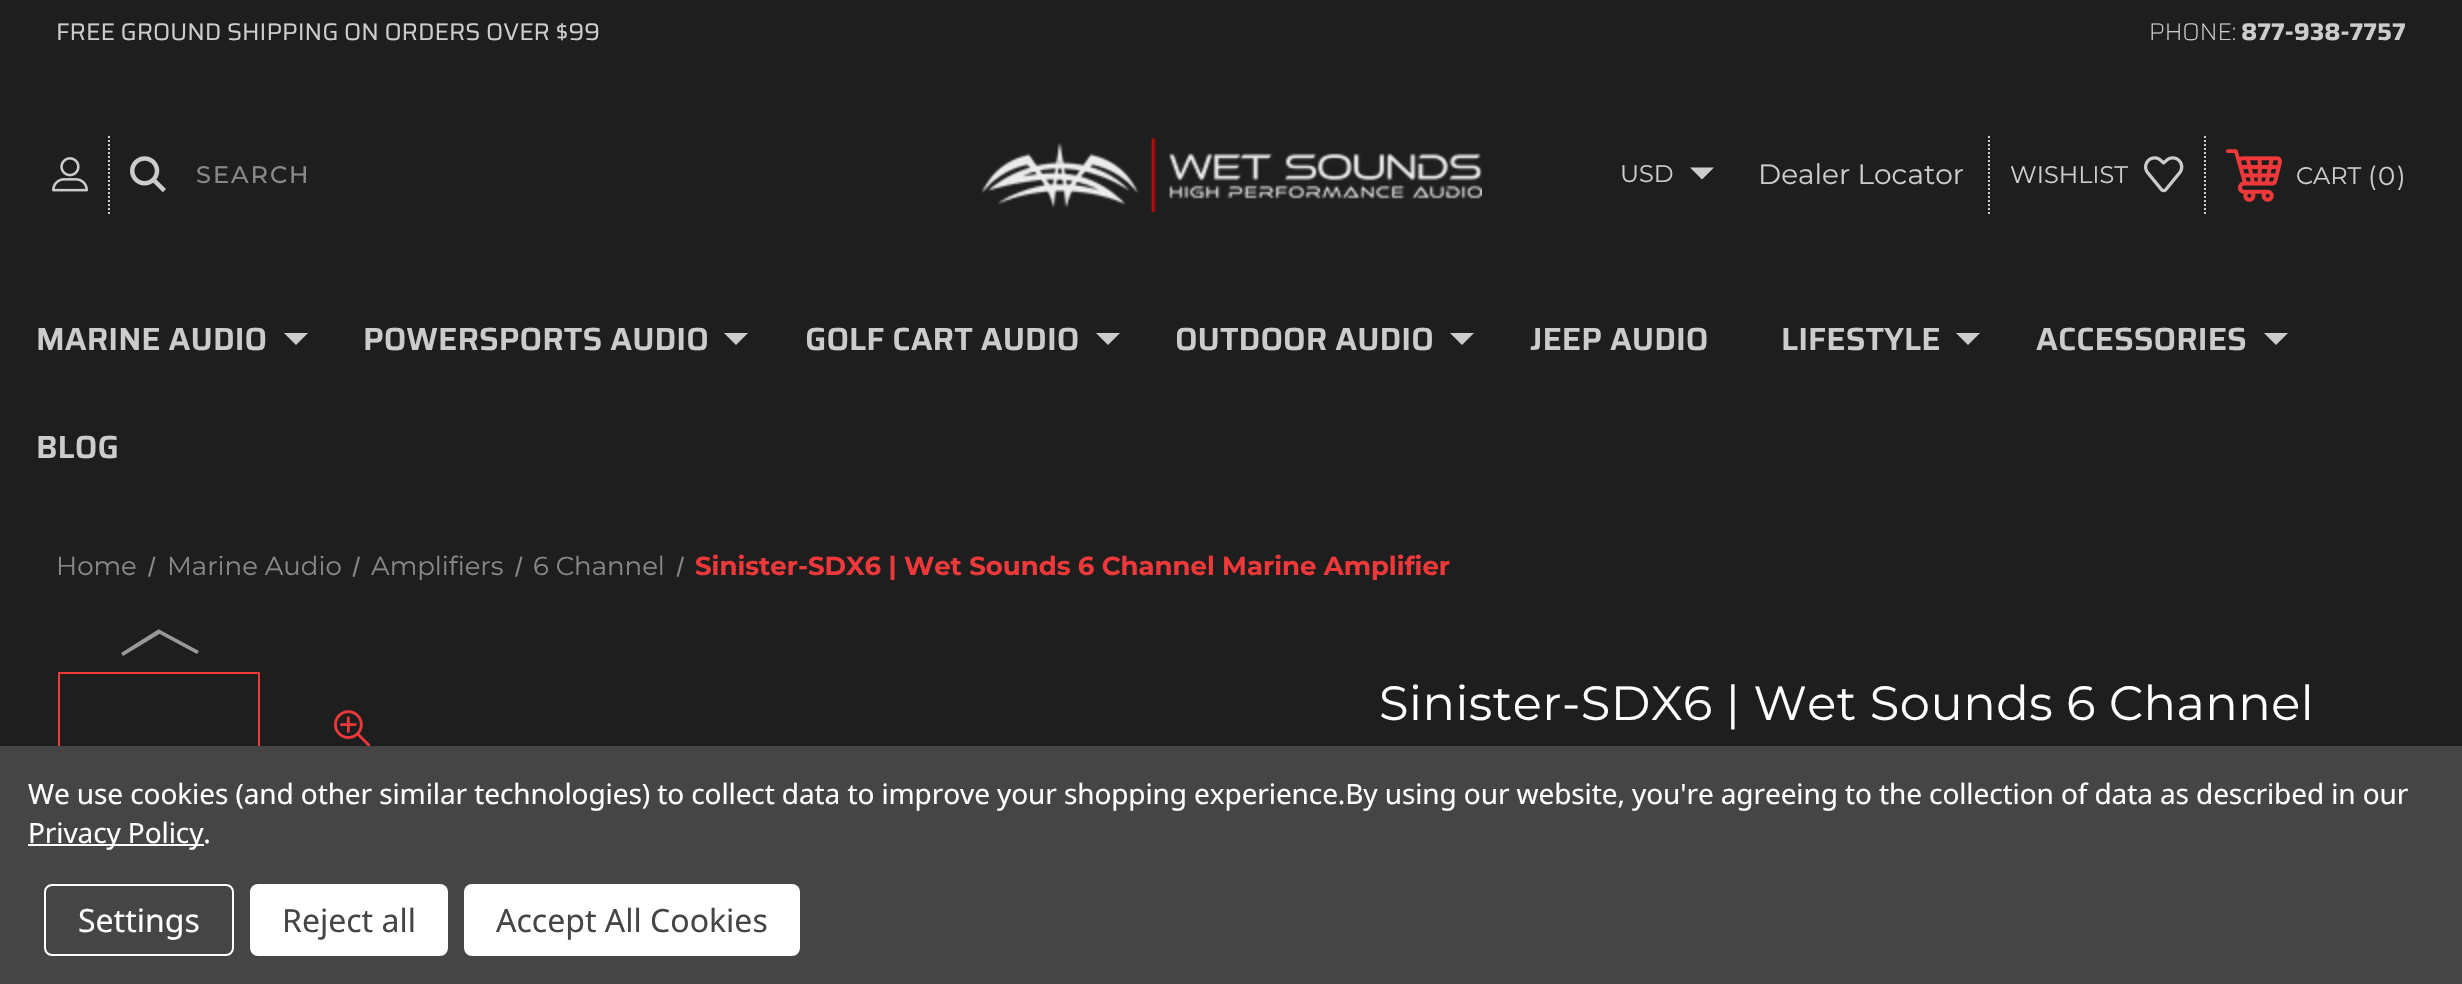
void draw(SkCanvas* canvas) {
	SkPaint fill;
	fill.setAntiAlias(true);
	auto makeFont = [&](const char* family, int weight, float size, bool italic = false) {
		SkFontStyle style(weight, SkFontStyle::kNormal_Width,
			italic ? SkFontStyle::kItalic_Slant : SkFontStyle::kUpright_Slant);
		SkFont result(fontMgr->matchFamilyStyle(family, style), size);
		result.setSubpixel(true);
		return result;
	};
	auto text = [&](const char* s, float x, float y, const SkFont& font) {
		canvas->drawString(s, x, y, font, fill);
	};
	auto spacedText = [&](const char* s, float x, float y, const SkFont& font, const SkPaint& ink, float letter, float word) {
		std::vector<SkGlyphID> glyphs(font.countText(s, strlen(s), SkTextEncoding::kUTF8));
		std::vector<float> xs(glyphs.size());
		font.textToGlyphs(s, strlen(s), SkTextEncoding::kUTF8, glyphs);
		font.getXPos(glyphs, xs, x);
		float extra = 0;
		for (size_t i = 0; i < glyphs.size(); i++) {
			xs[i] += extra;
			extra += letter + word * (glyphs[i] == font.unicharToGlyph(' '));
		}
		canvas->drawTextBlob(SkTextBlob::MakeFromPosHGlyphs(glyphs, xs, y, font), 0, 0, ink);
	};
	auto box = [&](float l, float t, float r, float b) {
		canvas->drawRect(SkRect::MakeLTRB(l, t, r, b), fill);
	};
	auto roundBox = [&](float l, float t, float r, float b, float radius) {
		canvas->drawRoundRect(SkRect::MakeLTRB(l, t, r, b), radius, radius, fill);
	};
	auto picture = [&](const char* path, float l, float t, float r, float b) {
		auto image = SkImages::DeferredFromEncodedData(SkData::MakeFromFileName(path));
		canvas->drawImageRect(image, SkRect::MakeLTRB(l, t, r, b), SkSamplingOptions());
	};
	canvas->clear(0xFF1E1E1E);
	picture("image0.png", 52, 157, 88, 192);
	fill.setStyle(SkPaint::kStroke_Style);
	fill.setStrokeWidth(2);
	fill.setColor(0xFFCCCCCC);
	fill.setPathEffect(SkDashPathEffect::Make({{2, 2}}, 0));
	canvas->drawPath(SkPathBuilder().moveTo(109, 136).lineTo(109, 214).detach(), fill);
	fill.setPathEffect(nullptr);
	picture("image1.png", 130, 156, 166, 193);
	picture("image2.png", 982, 138, 1482, 212);
	fill.setStyle(SkPaint::kFill_Style);
	canvas->drawPath(SkPathBuilder().moveTo(1690, 167.5f).lineTo(1702, 179.5f).lineTo(1714, 167.5f).close().detach(), fill);
	fill.setStyle(SkPaint::kStroke_Style);
	fill.setPathEffect(SkDashPathEffect::Make({{2, 2}}, 0));
	canvas->drawPath(SkPathBuilder().moveTo(2205, 136).lineTo(2205, 214).detach(), fill);
	fill.setPathEffect(nullptr);
	fill.setPathEffect(SkDashPathEffect::Make({{2, 2}}, 0));
	canvas->drawPath(SkPathBuilder().moveTo(1989, 136).lineTo(1989, 214).detach(), fill);
	fill.setPathEffect(nullptr);
	picture("image3.png", 2144, 156, 2184, 193);
	picture("image4.png", 2226, 149, 2282, 202);
	fill.setStyle(SkPaint::kFill_Style);
	canvas->drawPath(SkPathBuilder().moveTo(284, 333).lineTo(296, 345).lineTo(308, 333).close().detach(), fill);
	canvas->drawPath(SkPathBuilder().moveTo(724, 333).lineTo(736, 345).lineTo(748, 333).close().detach(), fill);
	canvas->drawPath(SkPathBuilder().moveTo(1096, 333).lineTo(1108, 345).lineTo(1120, 333).close().detach(), fill);
	canvas->drawPath(SkPathBuilder().moveTo(1450, 333).lineTo(1462, 345).lineTo(1474, 333).close().detach(), fill);
	canvas->drawPath(SkPathBuilder().moveTo(1956, 333).lineTo(1968, 345).lineTo(1980, 333).close().detach(), fill);
	canvas->drawPath(SkPathBuilder().moveTo(2264, 333).lineTo(2276, 345).lineTo(2288, 333).close().detach(), fill);
	fill.setColor(0xFF888888);
	canvas->drawPath(SkPathBuilder().moveTo(153.5f, 556.5f).lineTo(155.5f, 557).lineTo(150, 577).lineTo(148, 576.5f).close().detach(), fill);
	canvas->drawPath(SkPathBuilder().moveTo(358, 556.5f).lineTo(360, 557).lineTo(354.5f, 577).lineTo(352.5f, 576.5f).close().detach(), fill);
	canvas->drawPath(SkPathBuilder().moveTo(520.5f, 556.5f).lineTo(522.5f, 557).lineTo(517, 577).lineTo(515, 576.5f).close().detach(), fill);
	canvas->drawPath(SkPathBuilder().moveTo(682, 556.5f).lineTo(684, 557).lineTo(678.5f, 577).lineTo(676.5f, 576.5f).close().detach(), fill);
	fill.setColor(0xFF999999);
	canvas->drawPath(SkPathBuilder().moveTo(199, 651).lineTo(197, 654).lineTo(158, 633).lineTo(160, 630).close().moveTo(123, 656).lineTo(121, 653).lineTo(159, 629).lineTo(161, 633).close().detach(), fill);
	fill.setStyle(SkPaint::kStroke_Style);
	fill.setColor(0xFFEF383A);
	canvas->drawRect(SkRect::MakeLTRB(59, 673, 259, 873), fill);
	picture("image5.png", 334, 710, 370, 746);
	fill.setStyle(SkPaint::kFill_Style);
	fill.setColor(0xFF454545);
	box(0, 746, 2462, 984);
	fill.setColor(0xFFFFFFFF);
	box(28, 844, 204, 846);
	fill.setStyle(SkPaint::kStroke_Style);
	canvas->drawRoundRect(SkRect::MakeLTRB(45, 885, 233, 955), 7, 7, fill);
	fill.setStyle(SkPaint::kFill_Style);
	roundBox(250, 884, 448, 956, 8);
	roundBox(464, 884, 800, 956, 8);
	auto font1 = makeFont("Saira", 400, 24);
	fill.setColor(0xFFCCCCCC);
	text("FREE GROUND SHIPPING ON ORDERS OVER $99", 56, 40, font1);
	auto font2 = makeFont("Saira", 200, 24);
	text("PHONE:", 2149, 40, font2);
	auto font3 = makeFont("Saira", 700, 24);
	text("877-938-7757", 2241, 40, font3);
	auto font4 = makeFont("Montserrat", 500, 24);
	fill.setColor(0xFF888888);
	spacedText("SEARCH", 196, 183, font4, fill, 2, 0);
	auto font5 = makeFont("Montserrat", 400, 24);
	fill.setColor(0xFFCCCCCC);
	text("USD", 1620, 182, font5);
	auto font6 = makeFont("Montserrat", 400, 28);
	text("Dealer Locator", 1758, 184, font6);
	text("WISHLIST", 2010, 183, font5);
	text("CART", 2296, 184, font5);
	auto font7 = makeFont("Montserrat", 400, 26);
	text("(", 2368, 185, font7);
	text("0", 2378, 185, font7);
	text(")", 2397, 185, font7);
	auto font8 = makeFont("Saira", 600, 32);
	text("MARINE AUDIO", 36, 350, font8);
	text("POWERSPORTS AUDIO", 363, 350, font8);
	text("GOLF CART AUDIO", 805, 350, font8);
	text("OUTDOOR AUDIO", 1175, 350, font8);
	text("JEEP AUDIO", 1530, 350, font8);
	text("LIFESTYLE", 1781, 350, font8);
	text("ACCESSORIES", 2036, 350, font8);
	text("BLOG", 36, 458, font8);
	fill.setColor(0xFF888888);
	text("Home", 56, 575, font7);
	text("Marine Audio", 167, 575, font7);
	text("Amplifiers", 371, 575, font7);
	text("6 Channel", 533, 575, font7);
	auto font9 = makeFont("Montserrat", 700, 26);
	fill.setColor(0xFFEF383A);
	text("Sinister-SDX6 | Wet Sounds 6 Channel Marine Amplifier", 695, 575, font9);
	auto font10 = makeFont("Montserrat", 400, 48);
	fill.setColor(0xFFFFFFFF);
	spacedText("Sinister-SDX6 | Wet Sounds 6 Channel", 1379, 720, font10, fill, 0.5f, 0);
	auto font11 = makeFont("Noto Sans", 400, 28);
	spacedText("We use cookies (and other similar technologies) to collect data to improve your shopping experience.By using our website, you're agreeing to the collection of data as described in our", 28, 804, font11, fill, -0.1f, 0);
	spacedText("Privacy Policy.", 28, 843, font11, fill, -0.1f, 0);
	auto font12 = makeFont("Noto Sans", 400, 32);
	text("Settings", 78, 932, font12);
	fill.setColor(0xFF454545);
	text("Reject all", 282, 932, font12);
	text("Accept All Cookies", 496, 932, font12);
}
